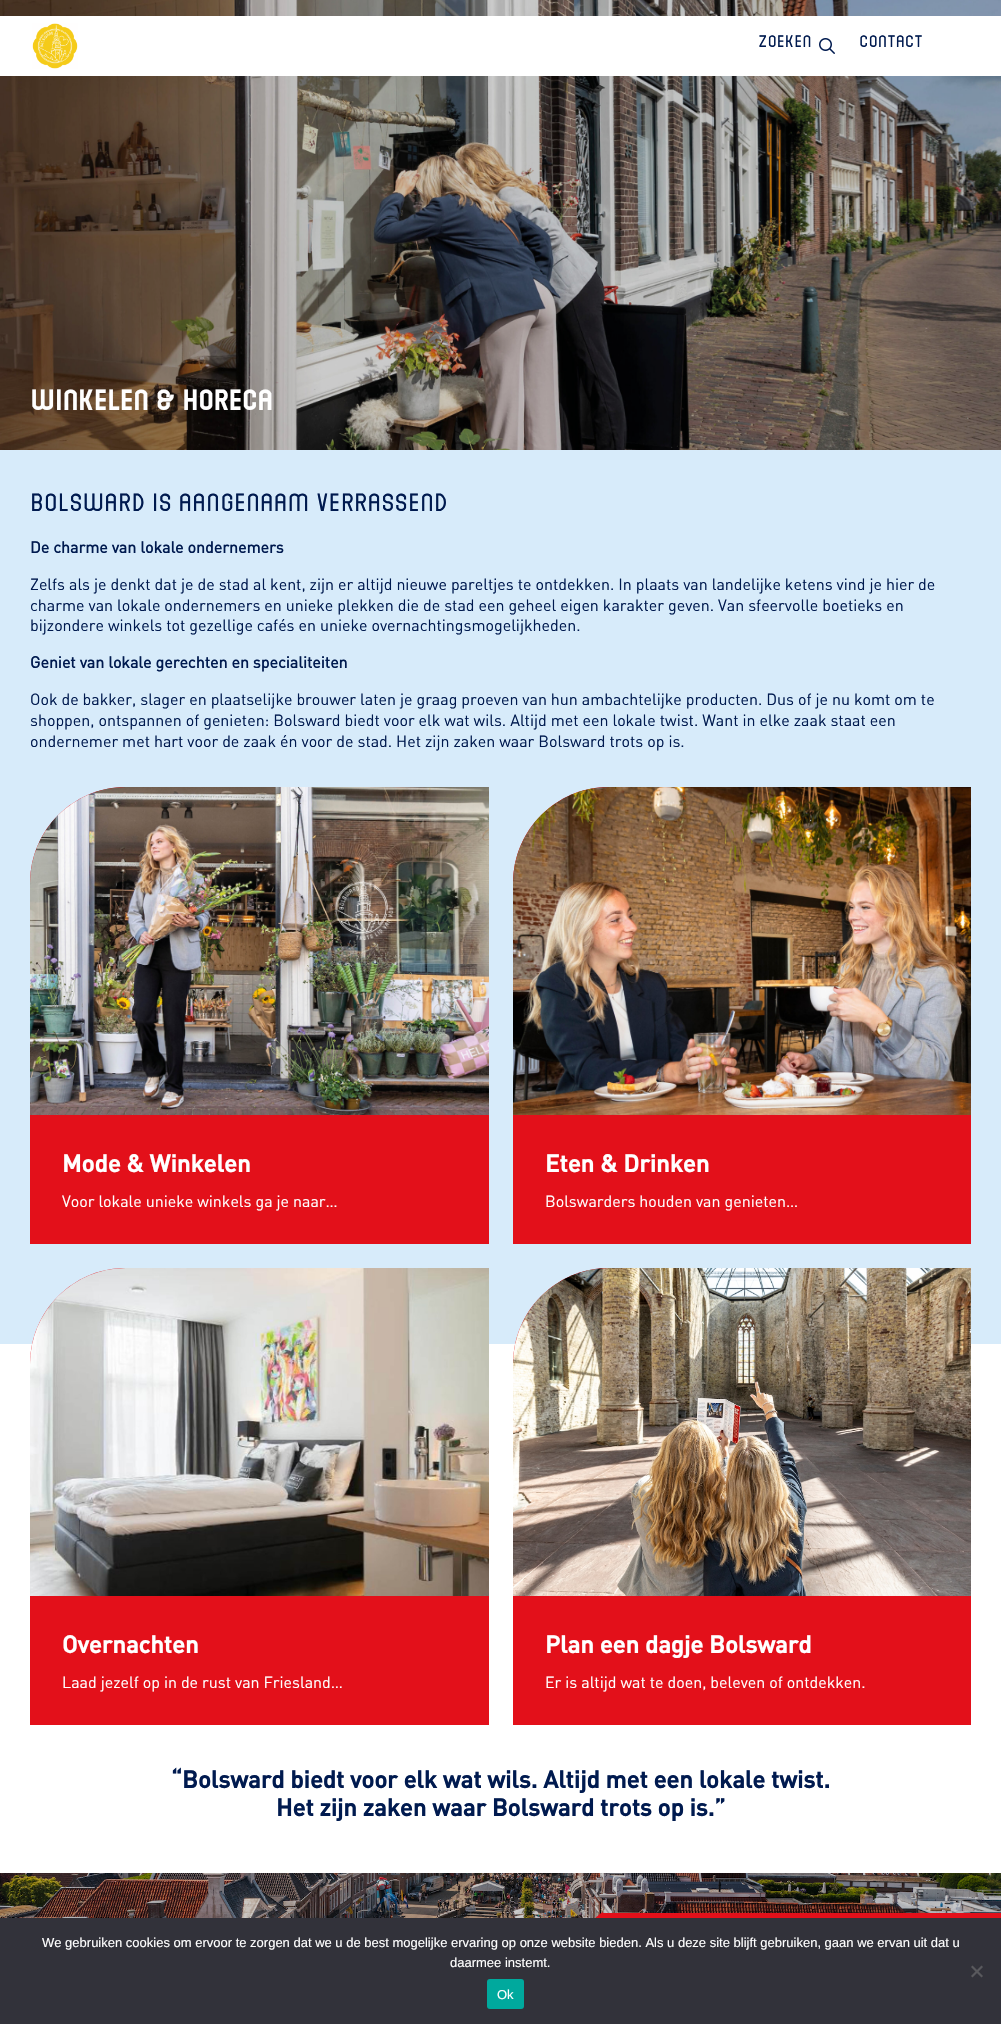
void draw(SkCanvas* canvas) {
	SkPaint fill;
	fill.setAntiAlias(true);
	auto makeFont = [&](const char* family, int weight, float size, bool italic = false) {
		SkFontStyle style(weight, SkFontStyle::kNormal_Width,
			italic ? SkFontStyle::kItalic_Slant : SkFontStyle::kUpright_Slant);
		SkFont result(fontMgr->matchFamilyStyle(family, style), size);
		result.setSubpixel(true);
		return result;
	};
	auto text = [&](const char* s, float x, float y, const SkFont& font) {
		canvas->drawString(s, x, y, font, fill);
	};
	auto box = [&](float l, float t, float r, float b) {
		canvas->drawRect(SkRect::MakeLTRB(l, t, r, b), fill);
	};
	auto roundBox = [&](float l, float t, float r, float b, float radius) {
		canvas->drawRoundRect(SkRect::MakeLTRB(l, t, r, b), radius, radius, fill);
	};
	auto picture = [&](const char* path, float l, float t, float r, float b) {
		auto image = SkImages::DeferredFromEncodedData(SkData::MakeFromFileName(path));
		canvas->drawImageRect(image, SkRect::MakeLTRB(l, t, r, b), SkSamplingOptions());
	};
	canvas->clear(0xFFFFFFFF);
	picture("image2.png", 0, 0, 1001, 450);
	fill.setColor(0xFFFFFFFF);
	box(0, 16, 1001, 76);
	picture("image0.png", 32, 23, 78, 69);
	picture("image1.png", 819, 38, 835, 54);
	fill.setColor(0xFFD7EBFA);
	box(0, 450, 1001, 1344);
	fill.setColor(0xFFE3101A);
	canvas->drawPath(SkPathBuilder().moveTo(126, 787).lineTo(489, 787).lineTo(489, 1244).lineTo(30, 1244).lineTo(30, 883).cubicTo(30, 830, 73, 787, 126, 787).close().detach(), fill);
	picture("image3.png", 30, 787, 489, 1115);
	canvas->drawPath(SkPathBuilder().moveTo(609, 787).lineTo(971, 787).lineTo(971, 1244).lineTo(513, 1244).lineTo(513, 883).cubicTo(513, 830, 556, 787, 609, 787).close().detach(), fill);
	picture("image4.png", 513, 787, 971, 1115);
	canvas->drawPath(SkPathBuilder().moveTo(126, 1268).lineTo(489, 1268).lineTo(489, 1725).lineTo(30, 1725).lineTo(30, 1364).cubicTo(30, 1311, 73, 1268, 126, 1268).close().detach(), fill);
	picture("image5.png", 30, 1268, 489, 1596);
	canvas->drawPath(SkPathBuilder().moveTo(609, 1268).lineTo(971, 1268).lineTo(971, 1725).lineTo(513, 1725).lineTo(513, 1364).cubicTo(513, 1311, 556, 1268, 609, 1268).close().detach(), fill);
	picture("image6.png", 513, 1268, 971, 1596);
	picture("image7.png", 0, 1873, 1001, 1918);
	box(601, 1913, 1001, 1918);
	canvas->drawPath(SkPathBuilder().moveTo(603, 1912).cubicTo(603, 1912, 583, 1922, 583, 1950).cubicTo(583, 1980, 601, 1987, 603, 1988).detach(), fill);
	fill.setColor(0xFF32323A);
	box(0, 1918, 1001, 2024);
	fill.setColor(0xFF59595D);
	canvas->drawPath(SkPathBuilder().moveTo(981.5f, 1965.5f).lineTo(983, 1967).lineTo(972.5f, 1977.5f).lineTo(971, 1976).close().detach(), fill);
	canvas->drawPath(SkPathBuilder().moveTo(971, 1967).lineTo(972.5f, 1965.5f).lineTo(983, 1976).lineTo(981.5f, 1977.5f).close().detach(), fill);
	fill.setColor(0xFF00A99D);
	roundBox(487, 1979, 524, 2009, 3);
	auto font1 = makeFont("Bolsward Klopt", 400, 24);
	fill.setColor(0xFF001A4F);
	text("Zoeken", 758, 47, font1);
	text("Contact", 859, 47, font1);
	auto font2 = makeFont("Bolsward Klopt", 700, 40);
	fill.setColor(0xFFFFFFFF);
	text("Winkelen & Horeca", 30, 410, font2);
	auto font3 = makeFont("Bolsward Klopt", 400, 36);
	fill.setColor(0xFF001A4F);
	text("Bolsward is aangenaam verrassend", 30, 511, font3);
	auto font4 = makeFont("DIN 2", 700, 16);
	text("De charme van lokale ondernemers", 30, 553, font4);
	auto font5 = makeFont("DIN", 400, 16);
	text("Zelfs als je denkt dat je de stad al kent, zijn er altijd nieuwe pareltjes te ontdekken. In plaats van landelijke ketens vind je hier de", 30, 590, font5);
	text("charme van lokale ondernemers en unieke plekken die de stad een geheel eigen karakter geven. Van sfeervolle boetieks en", 30, 611, font5);
	text("bijzondere winkels tot gezellige cafés en unieke overnachtingsmogelijkheden.", 30, 631, font5);
	text("Geniet van lokale gerechten en specialiteiten", 30, 668, font4);
	text("Ook de bakker, slager en plaatselijke brouwer laten je graag proeven van hun ambachtelijke producten. Dus of je nu komt om te", 30, 705, font5);
	text("shoppen, ontspannen of genieten: Bolsward biedt voor elk wat wils. Altijd met een lokale twist. Want in elke zaak staat een", 30, 726, font5);
	text("ondernemer met hart voor de zaak én voor de stad. Het zijn zaken waar Bolsward trots op is.", 30, 747, font5);
	auto font6 = makeFont("DIN", 700, 24);
	fill.setColor(0xFFFFFFFF);
	text("Mode & Winkelen", 62, 1172, font6);
	text("Voor lokale unieke winkels ga je naar…", 62, 1207, font5);
	text("Eten & Drinken", 545, 1172, font6);
	text("Bolswarders houden van genieten…", 545, 1207, font5);
	text("Overnachten", 62, 1653, font6);
	text("Laad jezelf op in de rust van Friesland…", 62, 1688, font5);
	text("Plan een dagje Bolsward", 545, 1653, font6);
	text("Er is altijd wat te doen, beleven of ontdekken.", 545, 1688, font5);
	fill.setColor(0xFF001A4F);
	text("“Bolsward biedt voor elk wat wils. Altijd met een lokale twist.", 171, 1788, font6);
	text("Het zijn zaken waar Bolsward trots op is.”", 276, 1816, font6);
	auto font7 = makeFont("Liberation Sans", 400, 13);
	fill.setColor(0xFFFFFFFF);
	text("We gebruiken cookies om ervoor te zorgen dat we u de best mogelijke ervaring op onze website bieden. Als u deze site blijft gebruiken, gaan we ervan uit dat u", 42, 1947, font7);
	text("daarmee instemt.", 450, 1967, font7);
	text("Ok", 497, 1999, font7);
}
